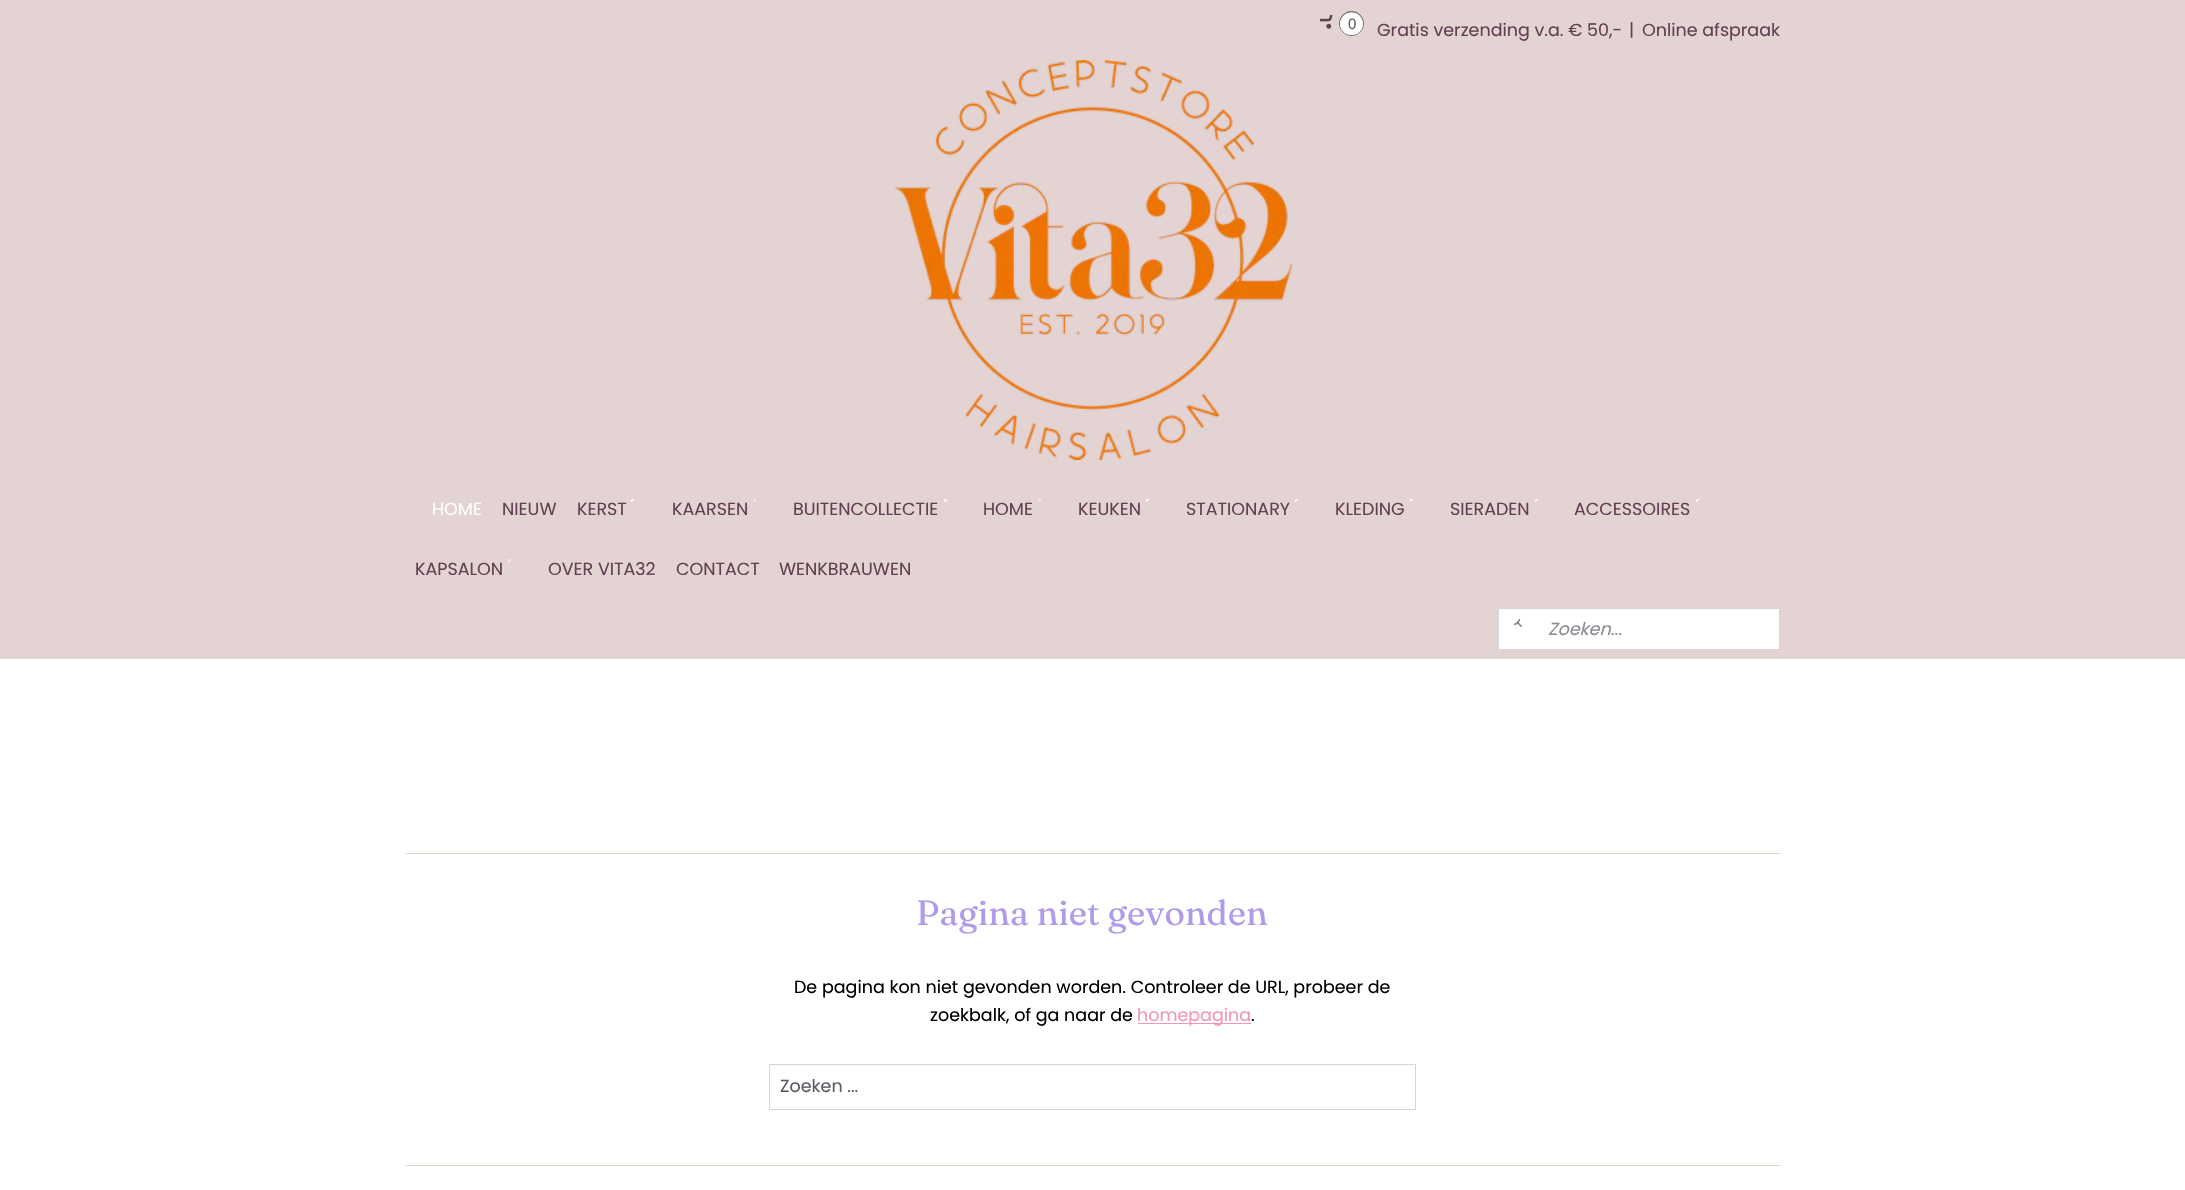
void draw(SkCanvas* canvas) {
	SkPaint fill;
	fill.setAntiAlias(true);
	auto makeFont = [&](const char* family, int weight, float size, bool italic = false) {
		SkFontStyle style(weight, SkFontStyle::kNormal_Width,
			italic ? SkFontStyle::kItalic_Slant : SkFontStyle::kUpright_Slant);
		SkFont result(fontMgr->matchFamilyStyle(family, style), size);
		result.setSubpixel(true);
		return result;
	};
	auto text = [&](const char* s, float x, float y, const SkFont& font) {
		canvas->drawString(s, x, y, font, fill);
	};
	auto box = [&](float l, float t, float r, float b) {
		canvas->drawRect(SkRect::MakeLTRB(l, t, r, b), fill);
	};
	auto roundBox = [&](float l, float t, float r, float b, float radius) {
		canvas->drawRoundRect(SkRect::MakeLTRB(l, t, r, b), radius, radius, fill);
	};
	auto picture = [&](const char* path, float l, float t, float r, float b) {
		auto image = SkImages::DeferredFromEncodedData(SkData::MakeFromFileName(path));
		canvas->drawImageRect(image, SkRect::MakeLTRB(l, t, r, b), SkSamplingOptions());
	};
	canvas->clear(0xFFFFFFFF);
	fill.setColor(0xFFE3D3D3);
	box(0, 0, 2185, 659);
	picture("image0.png", 1320, 15, 1333, 29);
	fill.setStyle(SkPaint::kStroke_Style);
	fill.setStrokeWidth(1);
	fill.setColor(0xFF575B62);
	canvas->drawCircle(1351.5f, 23.5f, 12, fill);
	fill.setStyle(SkPaint::kFill_Style);
	fill.setColor(0xFFFFFFFF);
	roundBox(1340, 13, 1363, 35, 11);
	picture("image1.png", 894, 60, 1293, 460);
	picture("image2.png", 631, 499, 635, 502);
	fill.setColor(0xFFEFE6E6);
	box(753, 499, 756, 502);
	fill.setColor(0xFFF5F0F0);
	box(944, 499, 947, 502);
	fill.setColor(0xFFEFE6E6);
	box(1038, 499, 1041, 502);
	picture("image2.png", 1146, 499, 1150, 502);
	picture("image3.png", 1295, 499, 1299, 502);
	picture("image3.png", 1410, 499, 1414, 502);
	picture("image3.png", 1535, 499, 1539, 502);
	picture("image2.png", 1696, 499, 1700, 502);
	box(508, 559, 511, 562);
	fill.setColor(0xFFFFFFFF);
	canvas->drawRect(SkRect::MakeLTRB(1498.5f, 608.5f, 1779.5f, 649.5f), fill);
	fill.setStyle(SkPaint::kStroke_Style);
	fill.setColor(0xFFD3D5D9);
	canvas->drawRect(SkRect::MakeLTRB(1498.5f, 608.5f, 1779.5f, 649.5f), fill);
	picture("image4.png", 1514, 619, 1522, 627);
	fill.setStyle(SkPaint::kFill_Style);
	fill.setColor(0xFFE3D5C7);
	box(405, 853, 1780, 854);
	box(405, 1165, 1780, 1166);
	fill.setColor(0xFFF197B4);
	box(1138, 1023, 1251, 1024);
	fill.setStyle(SkPaint::kStroke_Style);
	fill.setColor(0xFFD3D5D9);
	canvas->drawRect(SkRect::MakeLTRB(769.5f, 1064.5f, 1415.5f, 1109.5f), fill);
	auto font1 = makeFont("Liberation Sans", 400, 15);
	fill.setStyle(SkPaint::kFill_Style);
	fill.setColor(0xFF575B62);
	text("0", 1348, 29, font1);
	auto font2 = makeFont("Poppins", 400, 17.5f);
	fill.setColor(0xFF614051);
	text("Gratis verzending v.a. € 50,-", 1377, 36, font2);
	text("|", 1629, 36, font2);
	text("Online afspraak", 1642, 36, font2);
	fill.setColor(0xFFFFFFFF);
	text("HOME", 432, 515, font2);
	fill.setColor(0xFF614051);
	text("NIEUW", 502, 515, font2);
	text("KERST", 577, 515, font2);
	text("KAARSEN", 672, 515, font2);
	text("BUITENCOLLECTIE", 793, 515, font2);
	text("HOME", 983, 515, font2);
	text("KEUKEN", 1078, 515, font2);
	text("STATIONARY", 1186, 515, font2);
	text("KLEDING", 1335, 515, font2);
	text("SIERADEN", 1450, 515, font2);
	text("ACCESSOIRES", 1574, 515, font2);
	text("KAPSALON", 415, 575, font2);
	text("OVER VITA32", 548, 575, font2);
	text("CONTACT", 676, 575, font2);
	text("WENKBRAUWEN", 779, 575, font2);
	auto font3 = makeFont("Poppins", 400, 17.5f, true);
	fill.setColor(0xFF898C91);
	text("Zoeken...", 1548, 635, font3);
	auto font4 = makeFont("Fraunces", 400, 35);
	fill.setColor(0xFFB09BEA);
	text("Pagina niet gevonden", 916, 925, font4);
	fill.setColor(0xFF000000);
	text("De pagina kon niet gevonden worden. Controleer de URL, probeer de", 794, 993, font2);
	text("zoekbalk, of ga naar de", 930, 1021, font2);
	fill.setColor(0xFFF197B4);
	text("homepagina", 1137, 1021, font2);
	fill.setColor(0xFF000000);
	text(".", 1251, 1021, font2);
	fill.setColor(0xFF575B62);
	text("Zoeken ...", 780, 1092, font2);
}
